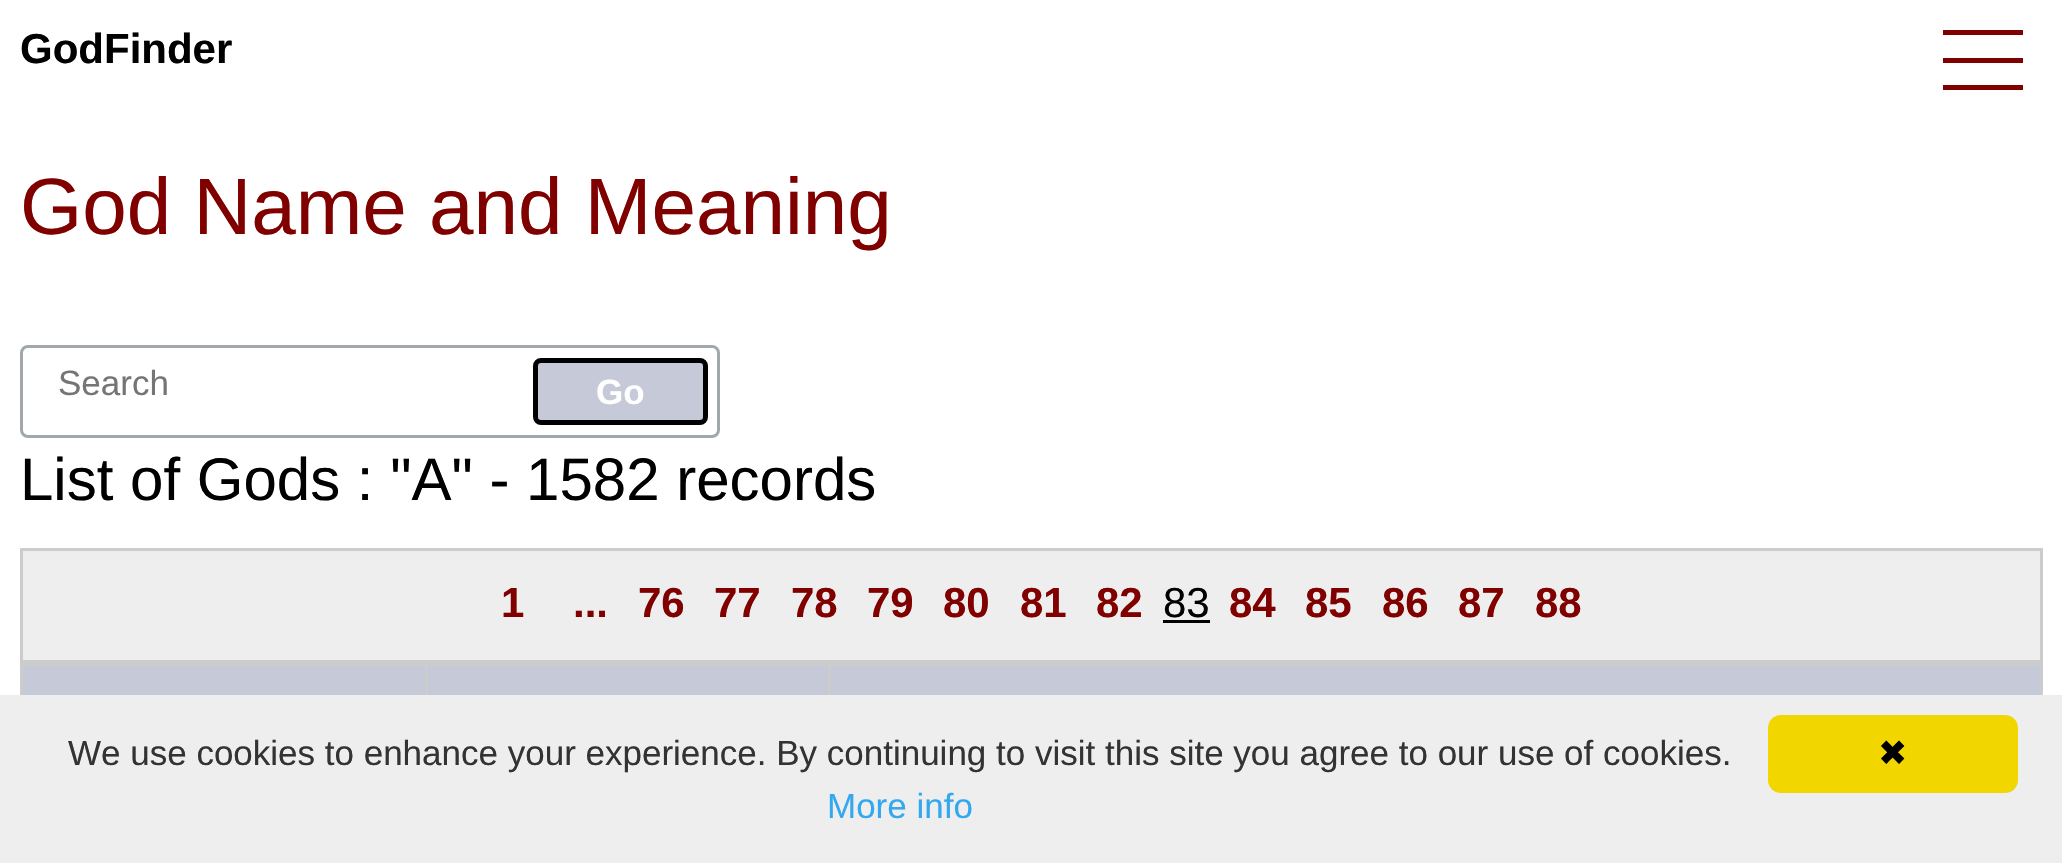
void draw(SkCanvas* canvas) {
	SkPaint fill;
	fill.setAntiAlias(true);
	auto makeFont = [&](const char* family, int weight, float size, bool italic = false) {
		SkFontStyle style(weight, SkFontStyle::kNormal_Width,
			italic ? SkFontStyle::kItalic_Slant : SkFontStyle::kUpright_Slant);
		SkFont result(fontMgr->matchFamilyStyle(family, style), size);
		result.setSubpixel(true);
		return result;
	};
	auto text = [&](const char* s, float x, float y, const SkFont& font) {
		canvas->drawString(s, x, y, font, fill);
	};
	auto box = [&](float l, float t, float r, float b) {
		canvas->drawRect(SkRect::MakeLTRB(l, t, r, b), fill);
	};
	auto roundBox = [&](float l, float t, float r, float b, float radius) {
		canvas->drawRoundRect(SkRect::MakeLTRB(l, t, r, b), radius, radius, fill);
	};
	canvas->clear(0xFFFFFFFF);
	fill.setColor(0xFF800000);
	box(1943, 85, 2023, 90);
	box(1943, 30, 2023, 35);
	box(1943, 58, 2023, 63);
	fill.setStyle(SkPaint::kStroke_Style);
	fill.setStrokeWidth(3);
	fill.setColor(0xFFA0A8AC);
	canvas->drawRoundRect(SkRect::MakeLTRB(21.5f, 346.5f, 718.5f, 436.5f), 6.5f, 6.5f, fill);
	fill.setStyle(SkPaint::kFill_Style);
	fill.setColor(0xFFC6C9D8);
	canvas->drawRoundRect(SkRect::MakeLTRB(535.5f, 360.5f, 705.5f, 422.5f), 5.5f, 5.5f, fill);
	fill.setStyle(SkPaint::kStroke_Style);
	fill.setStrokeWidth(5);
	fill.setColor(0xFF000000);
	canvas->drawRoundRect(SkRect::MakeLTRB(535.5f, 360.5f, 705.5f, 422.5f), 5.5f, 5.5f, fill);
	fill.setStyle(SkPaint::kFill_Style);
	fill.setColor(0xFFEEEEEE);
	box(23, 551, 2040, 660);
	fill.setColor(0xFFCCCCCC);
	box(20, 548, 2043, 551);
	box(2040, 548, 2043, 663);
	box(20, 660, 2043, 663);
	box(20, 548, 23, 663);
	fill.setColor(0xFF000000);
	box(1163, 620, 1210, 623);
	fill.setColor(0xFFC6C9D8);
	box(23, 666, 425, 695);
	fill.setColor(0xFFCCCCCC);
	box(828, 663, 2043, 666);
	box(828, 663, 831, 695);
	box(425, 663, 830, 666);
	box(425, 663, 428, 695);
	box(20, 663, 428, 666);
	box(20, 663, 23, 695);
	fill.setColor(0xFFC6C9D8);
	box(428, 666, 828, 695);
	box(831, 666, 2040, 695);
	fill.setColor(0xFFCCCCCC);
	box(2040, 663, 2043, 695);
	fill.setColor(0xFFEEEEEE);
	box(0, 695, 2062, 863);
	fill.setColor(0xFFF1D600);
	roundBox(1768, 715, 2018, 793, 13);
	auto font1 = makeFont("Liberation Sans", 700, 42);
	fill.setColor(0xFF000000);
	text("GodFinder", 20, 63, font1);
	auto font2 = makeFont("Liberation Sans", 400, 80);
	fill.setColor(0xFF800000);
	text("God Name and Meaning", 20, 234, font2);
	auto font3 = makeFont("Liberation Sans", 400, 35);
	fill.setColor(0xFF757575);
	text("Search", 58, 395, font3);
	auto font4 = makeFont("Liberation Sans", 700, 35);
	fill.setColor(0xFFFFFFFF);
	text("Go", 596, 404, font4);
	auto font5 = makeFont("Liberation Sans", 400, 60);
	fill.setColor(0xFF000000);
	text("List of Gods : \"A\" - 1582 records", 20, 500, font5);
	fill.setColor(0xFF800000);
	text("1", 501, 617, font1);
	text("...", 573, 617, font1);
	text("76", 638, 617, font1);
	text("77", 714, 617, font1);
	text("78", 791, 617, font1);
	text("79", 867, 617, font1);
	text("80", 943, 617, font1);
	text("81", 1020, 617, font1);
	text("82", 1096, 617, font1);
	auto font6 = makeFont("Liberation Sans", 400, 42);
	fill.setColor(0xFF000000);
	text("83", 1163, 617, font6);
	fill.setColor(0xFF800000);
	text("84", 1229, 617, font1);
	text("85", 1305, 617, font1);
	text("86", 1382, 617, font1);
	text("87", 1458, 617, font1);
	text("88", 1535, 617, font1);
	fill.setColor(0xFF333333);
	text("We use cookies to enhance your experience. By continuing to visit this site you agree to our use of cookies.", 68, 765, font3);
	fill.setColor(0xFF31A8F0);
	text("More info", 827, 818, font3);
	auto font7 = makeFont("DejaVu Sans", 400, 35);
	fill.setColor(0xFF000000);
	text("✖", 1878, 765, font7);
}
